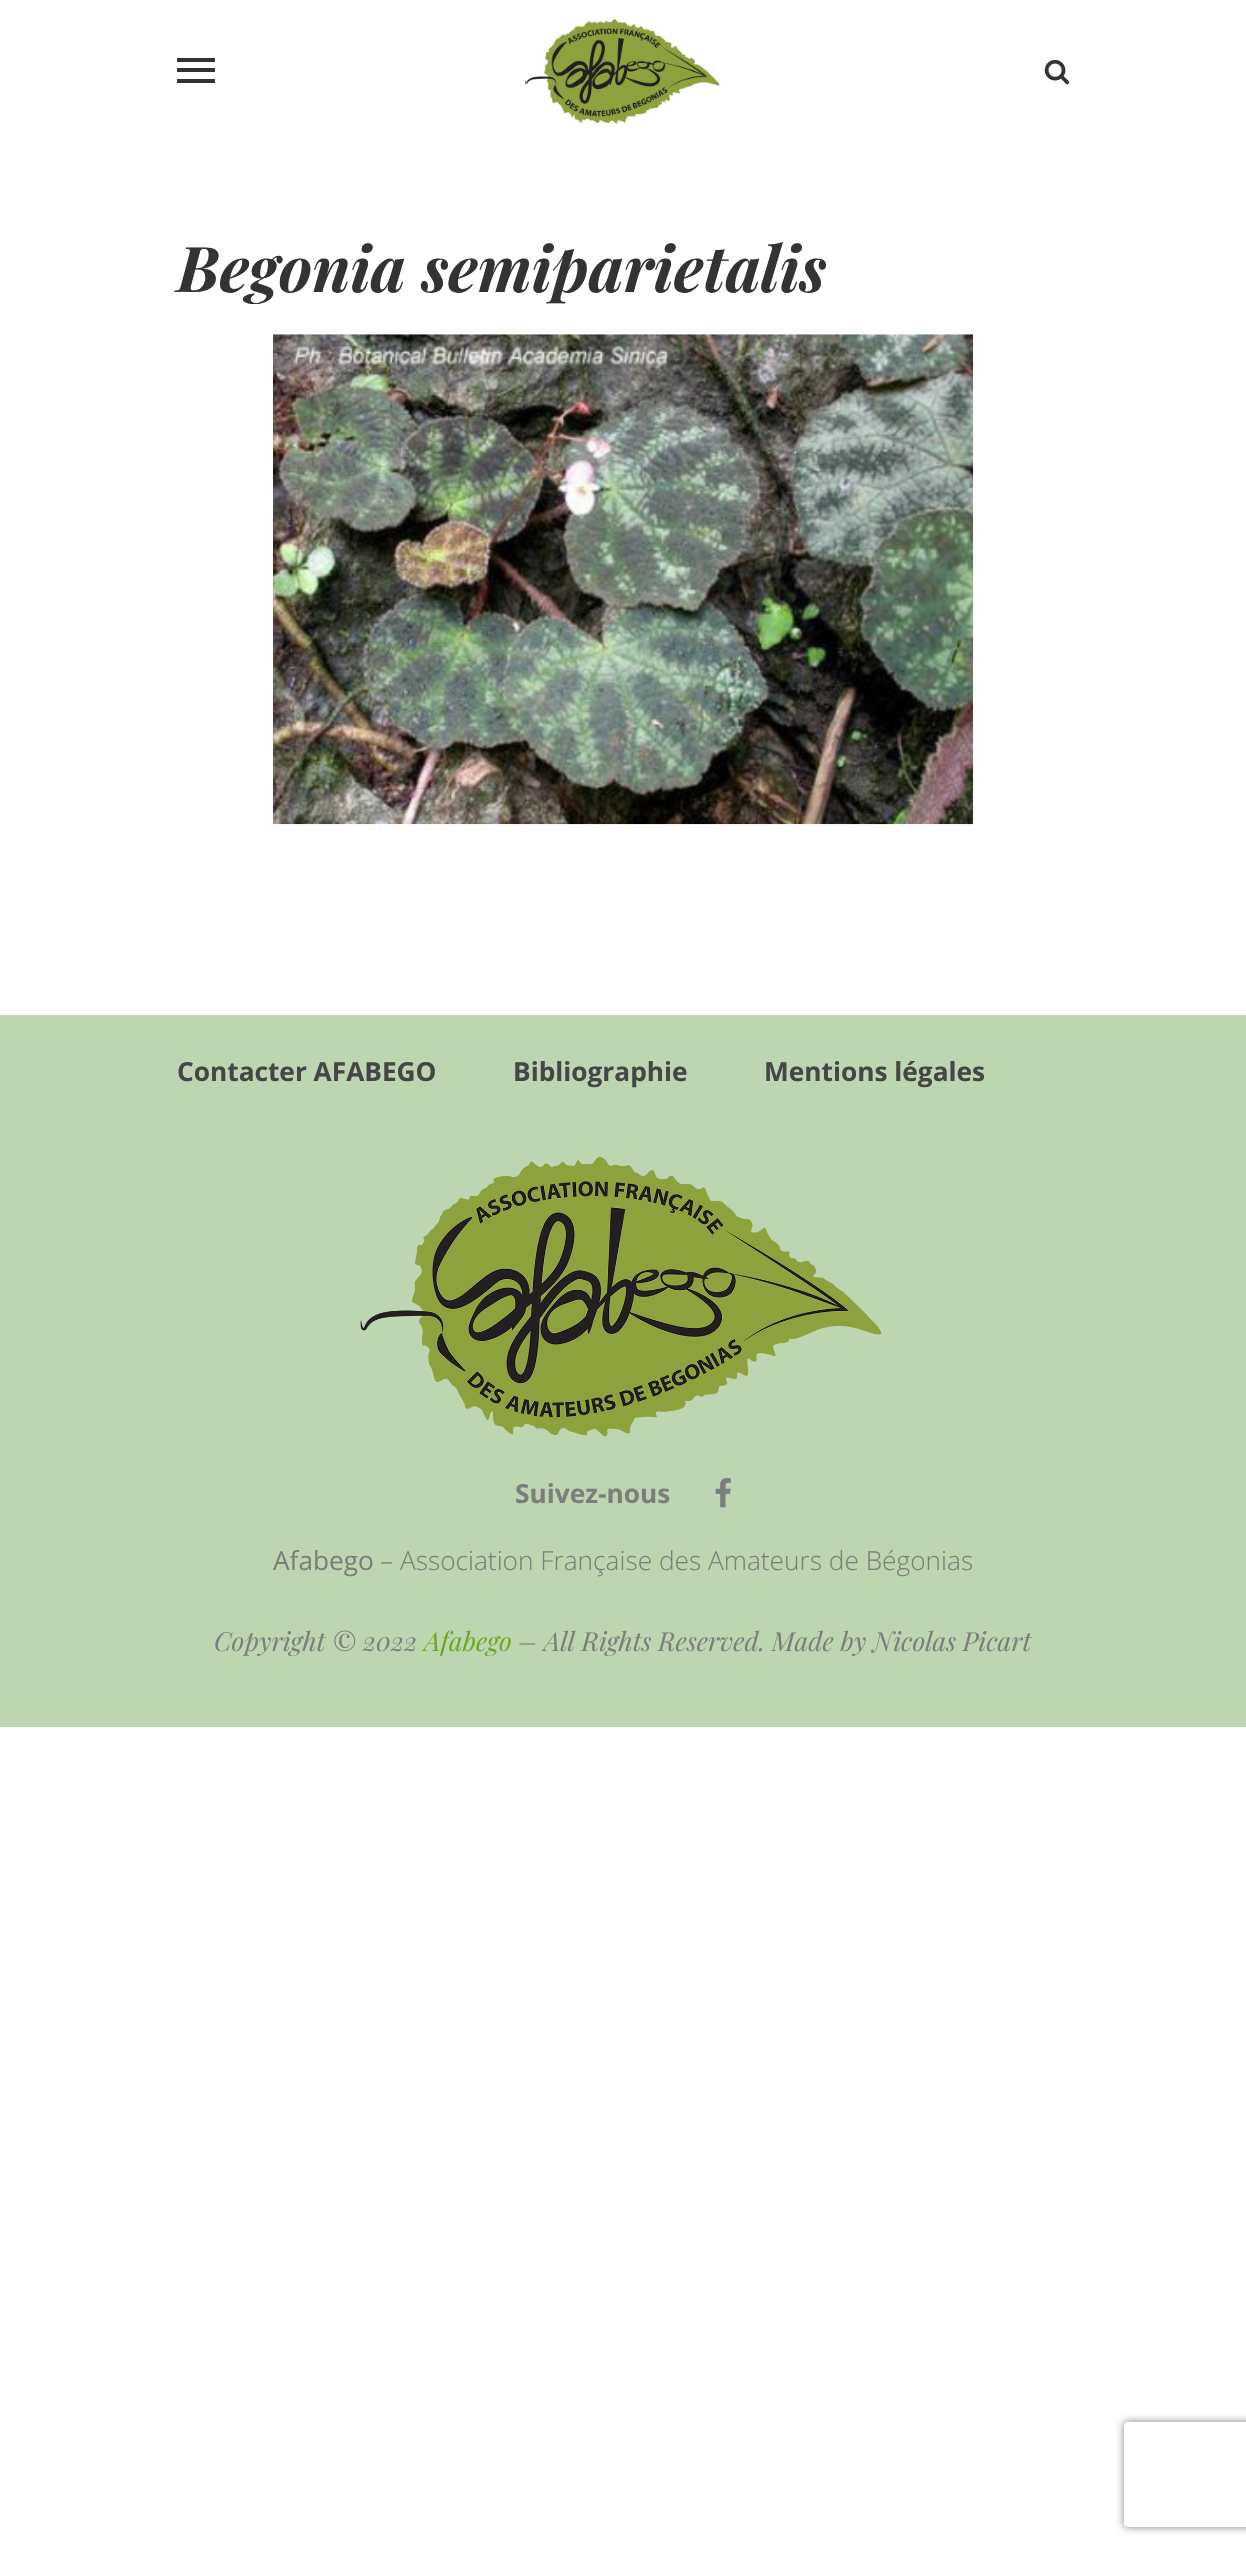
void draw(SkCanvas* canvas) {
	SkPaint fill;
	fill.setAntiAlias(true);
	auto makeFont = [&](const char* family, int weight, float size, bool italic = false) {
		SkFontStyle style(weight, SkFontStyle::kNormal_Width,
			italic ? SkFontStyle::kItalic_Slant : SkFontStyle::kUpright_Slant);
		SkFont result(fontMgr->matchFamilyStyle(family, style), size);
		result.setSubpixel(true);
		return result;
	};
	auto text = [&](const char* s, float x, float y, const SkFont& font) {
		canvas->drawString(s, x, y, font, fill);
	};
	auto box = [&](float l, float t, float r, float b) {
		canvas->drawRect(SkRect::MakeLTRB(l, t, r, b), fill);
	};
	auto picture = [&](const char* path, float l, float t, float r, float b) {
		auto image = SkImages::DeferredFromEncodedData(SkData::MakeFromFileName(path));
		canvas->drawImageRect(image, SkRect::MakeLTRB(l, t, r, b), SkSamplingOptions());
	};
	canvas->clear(0xFFFFFFFF);
	fill.setColor(0xFF333333);
	box(177, 68, 215, 72);
	box(177, 58, 215, 62);
	box(177, 79, 215, 83);
	picture("image0.png", 525, 19, 720, 124);
	picture("image1.png", 1044, 59, 1070, 85);
	picture("image2.png", 273, 334, 973, 825);
	fill.setColor(0xFFBDD6B1);
	box(0, 1015, 1246, 1727);
	picture("image3.png", 360, 1156, 882, 1437);
	picture("image4.png", 715, 1478, 731, 1508);
	canvas->save();
	canvas->clipPath(SkPathBuilder(SkPathFillType::kEvenOdd).moveTo(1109, 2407).lineTo(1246, 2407).lineTo(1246, 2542).lineTo(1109, 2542).close().moveTo(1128, 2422).lineTo(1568, 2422).cubicTo(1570, 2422, 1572, 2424, 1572, 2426).lineTo(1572, 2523).cubicTo(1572, 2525, 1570, 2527, 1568, 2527).lineTo(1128, 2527).cubicTo(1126, 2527, 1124, 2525, 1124, 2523).lineTo(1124, 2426).cubicTo(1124, 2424, 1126, 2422, 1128, 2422).close().detach(), true);
	fill.setColor(0xFF808080);
	fill.setMaskFilter(SkMaskFilter::MakeBlur(kNormal_SkBlurStyle, 4.5f));
	canvas->drawRoundRect(SkRect::MakeLTRB(1124, 2422, 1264, 2527), 4, 4, fill);
	fill.setMaskFilter(nullptr);
	canvas->restore();
	auto font1 = makeFont("Playfair Display", 700, 63, true);
	fill.setColor(0xFF333333);
	text("Begonia semiparietalis", 177, 292, font1);
	auto font2 = makeFont("Open Sans", 700, 26.25f);
	fill.setColor(0xFF464646);
	text("Contacter AFABEGO", 177, 1081, font2);
	text("Bibliographie", 513, 1081, font2);
	text("Mentions légales", 764, 1081, font2);
	fill.setColor(0xFF7D7D7D);
	text("Suivez-nous", 515, 1503, font2);
	auto font3 = makeFont("Open Sans", 400, 26.25f);
	text("Afabego", 273, 1570, font3);
	auto font4 = makeFont("Open Sans", 300, 26.25f);
	text("– Association Française des Amateurs de Bégonias", 380, 1570, font4);
	auto font5 = makeFont("Playfair Display", 400, 26.25f, true);
	text("Copyright © 2022", 214, 1651, font5);
	fill.setColor(0xFF6EA820);
	text("Afabego", 424, 1651, font5);
	fill.setColor(0xFF7D7D7D);
	text("– All Rights Reserved. Made by Nicolas Picart", 518, 1651, font5);
}
